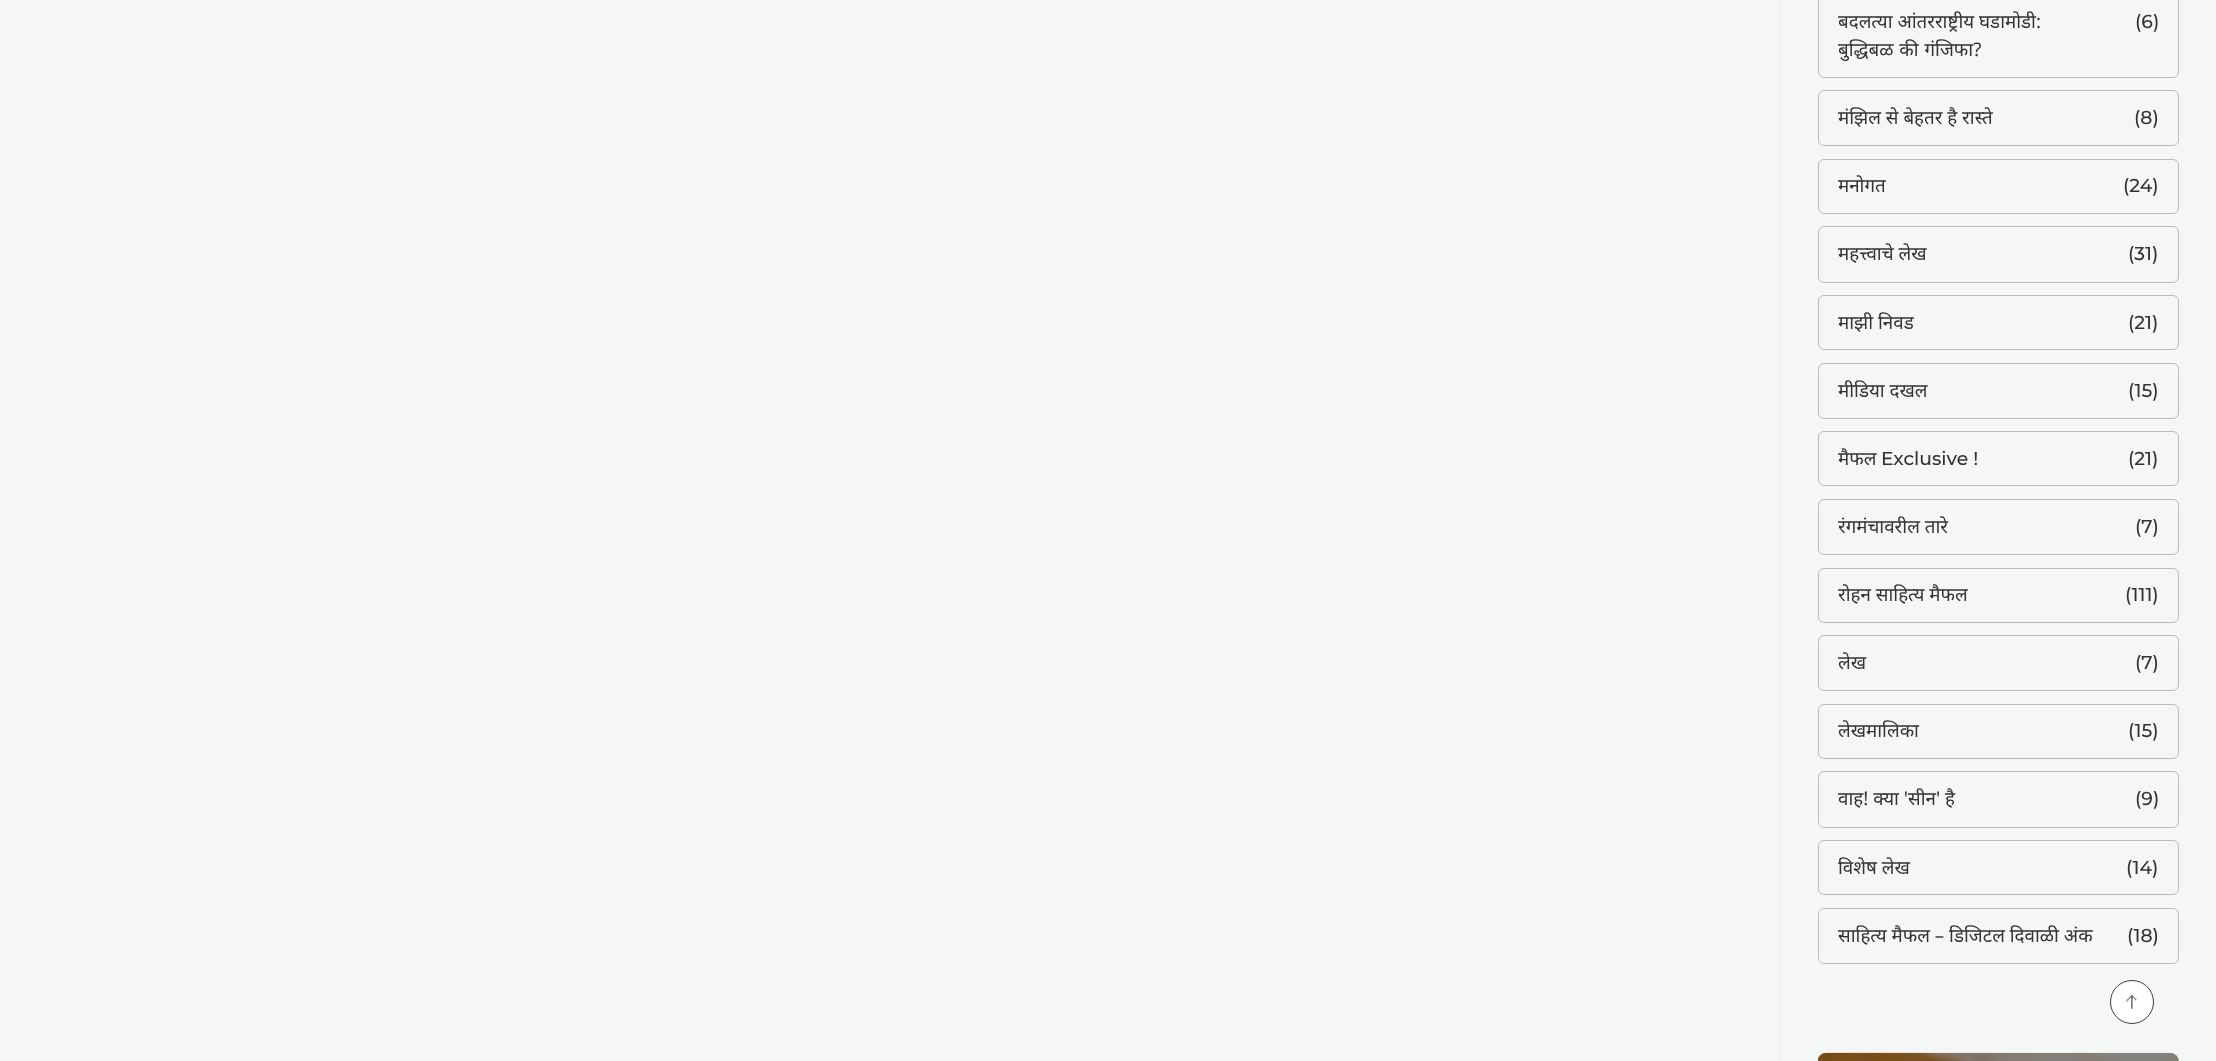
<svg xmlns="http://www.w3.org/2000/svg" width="2216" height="1061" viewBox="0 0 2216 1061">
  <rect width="100%" height="100%" fill="rgb(245,246,246)"/>
  <rect x="1779" y="0" width="1" height="1061" fill="rgb(234,234,234)"/>
  <rect x="1818.5" y="-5.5" width="360" height="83" rx="5.5" fill="none" stroke="rgb(187,187,187)"/>
  <g font-family="Noto Sans" font-size="18.75" fill="rgb(51,51,51)">
    <text>
      <tspan x="1838" y="28">बदलत्या आंतरराष्ट्रीय घडामोडी:</tspan>
      <tspan x="1838" y="56" word-spacing="1">बुद्धिबळ की गंजिफा?</tspan>
    </text>
  </g>
  <text x="2135" y="28" font-family="Montserrat" font-size="18.75" font-weight="500" fill="rgb(51,51,51)">(6)</text>
  <rect x="1818.5" y="90.5" width="360" height="55" rx="5.5" fill="none" stroke="rgb(187,187,187)"/>
  <text x="1838" y="124" font-family="Noto Sans" font-size="18.75" fill="rgb(51,51,51)">मंझिल से बेहतर है रास्ते</text>
  <text x="2134" y="124" font-family="Montserrat" font-size="18.75" font-weight="500" fill="rgb(51,51,51)">(8)</text>
  <rect x="1818.5" y="159.5" width="360" height="54" rx="5.5" fill="none" stroke="rgb(187,187,187)"/>
  <text x="1838" y="192" font-family="Noto Sans" font-size="18.75" fill="rgb(51,51,51)">मनोगत</text>
  <text x="2123" y="192" font-family="Montserrat" font-size="18.75" font-weight="500" fill="rgb(51,51,51)">(24)</text>
  <rect x="1818.5" y="226.5" width="360" height="56" rx="5.5" fill="none" stroke="rgb(187,187,187)"/>
  <text x="1838" y="260" font-family="Noto Sans" font-size="18.75" fill="rgb(51,51,51)">महत्त्वाचे लेख</text>
  <text x="2128" y="260" font-family="Montserrat" font-size="18.75" font-weight="500" fill="rgb(51,51,51)">(31)</text>
  <rect x="1818.5" y="295.5" width="360" height="54" rx="5.5" fill="none" stroke="rgb(187,187,187)"/>
  <text x="1838" y="329" font-family="Noto Sans" font-size="18.75" fill="rgb(51,51,51)">माझी निवड</text>
  <text x="2128" y="329" font-family="Montserrat" font-size="18.75" font-weight="500" fill="rgb(51,51,51)">(21)</text>
  <rect x="1818.5" y="363.5" width="360" height="55" rx="5.5" fill="none" stroke="rgb(187,187,187)"/>
  <text x="1838" y="397" font-family="Noto Sans" font-size="18.75" fill="rgb(51,51,51)">मीडिया दखल</text>
  <text x="2128" y="397" font-family="Montserrat" font-size="18.75" font-weight="500" fill="rgb(51,51,51)">(15)</text>
  <rect x="1818.5" y="431.5" width="360" height="54" rx="5.5" fill="none" stroke="rgb(187,187,187)"/>
  <text x="1838" y="465" font-family="Noto Sans" font-size="18.75" fill="rgb(51,51,51)">मैफल</text>
  <g font-family="Montserrat" font-size="18.75" font-weight="500" fill="rgb(51,51,51)">
    <text x="1881" y="465">Exclusive !</text>
    <text x="2128" y="465">(21)</text>
  </g>
  <rect x="1818.5" y="499.5" width="360" height="55" rx="5.5" fill="none" stroke="rgb(187,187,187)"/>
  <text x="1838" y="533" font-family="Noto Sans" font-size="18.75" fill="rgb(51,51,51)">रंगमंचावरील तारे</text>
  <text x="2135" y="533" font-family="Montserrat" font-size="18.75" font-weight="500" fill="rgb(51,51,51)">(7)</text>
  <rect x="1818.5" y="568.5" width="360" height="54" rx="5.5" fill="none" stroke="rgb(187,187,187)"/>
  <text x="1838" y="601" font-family="Noto Sans" font-size="18.75" fill="rgb(51,51,51)">रोहन साहित्य मैफल</text>
  <text x="2125" y="601" font-family="Montserrat" font-size="18.75" font-weight="500" fill="rgb(51,51,51)">(111)</text>
  <rect x="1818.5" y="635.5" width="360" height="55" rx="5.5" fill="none" stroke="rgb(187,187,187)"/>
  <text x="1838" y="669" font-family="Noto Sans" font-size="18.75" fill="rgb(51,51,51)">लेख</text>
  <text x="2135" y="669" font-family="Montserrat" font-size="18.75" font-weight="500" fill="rgb(51,51,51)">(7)</text>
  <rect x="1818.5" y="704.5" width="360" height="54" rx="5.5" fill="none" stroke="rgb(187,187,187)"/>
  <text x="1838" y="737" font-family="Noto Sans" font-size="18.75" fill="rgb(51,51,51)">लेखमालिका</text>
  <text x="2128" y="737" font-family="Montserrat" font-size="18.75" font-weight="500" fill="rgb(51,51,51)">(15)</text>
  <rect x="1818.5" y="771.5" width="360" height="56" rx="5.5" fill="none" stroke="rgb(187,187,187)"/>
  <text x="1838" y="805" font-family="Noto Sans" font-size="18.75" fill="rgb(51,51,51)">वाह! क्या 'सीन' है</text>
  <text x="2135" y="805" font-family="Montserrat" font-size="18.75" font-weight="500" fill="rgb(51,51,51)">(9)</text>
  <rect x="1818.5" y="840.5" width="360" height="54" rx="5.5" fill="none" stroke="rgb(187,187,187)"/>
  <text x="1838" y="874" font-family="Noto Sans" font-size="18.75" fill="rgb(51,51,51)">विशेष लेख</text>
  <text x="2126" y="874" font-family="Montserrat" font-size="18.75" font-weight="500" fill="rgb(51,51,51)">(14)</text>
  <rect x="1818.5" y="908.5" width="360" height="55" rx="5.5" fill="none" stroke="rgb(187,187,187)"/>
  <text x="1838" y="942" font-family="Noto Sans" font-size="18.75" fill="rgb(51,51,51)">साहित्य मैफल – डिजिटल दिवाळी अंक</text>
  <text x="2127" y="942" font-family="Montserrat" font-size="18.75" font-weight="500" fill="rgb(51,51,51)">(18)</text>
  <image x="1817" y="1052" width="362" height="9" href="pic1.png"/>
  <rect x="1818" y="1053" width="361" height="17" rx="9" fill="rgba(0,0,0,0.3)"/>
  <circle cx="2132" cy="1002" r="21.5" fill="rgb(255,255,255)" stroke="rgb(61,61,61)"/>
  <image x="2126" y="994" width="11" height="15" href="pic2.png"/>
</svg>
